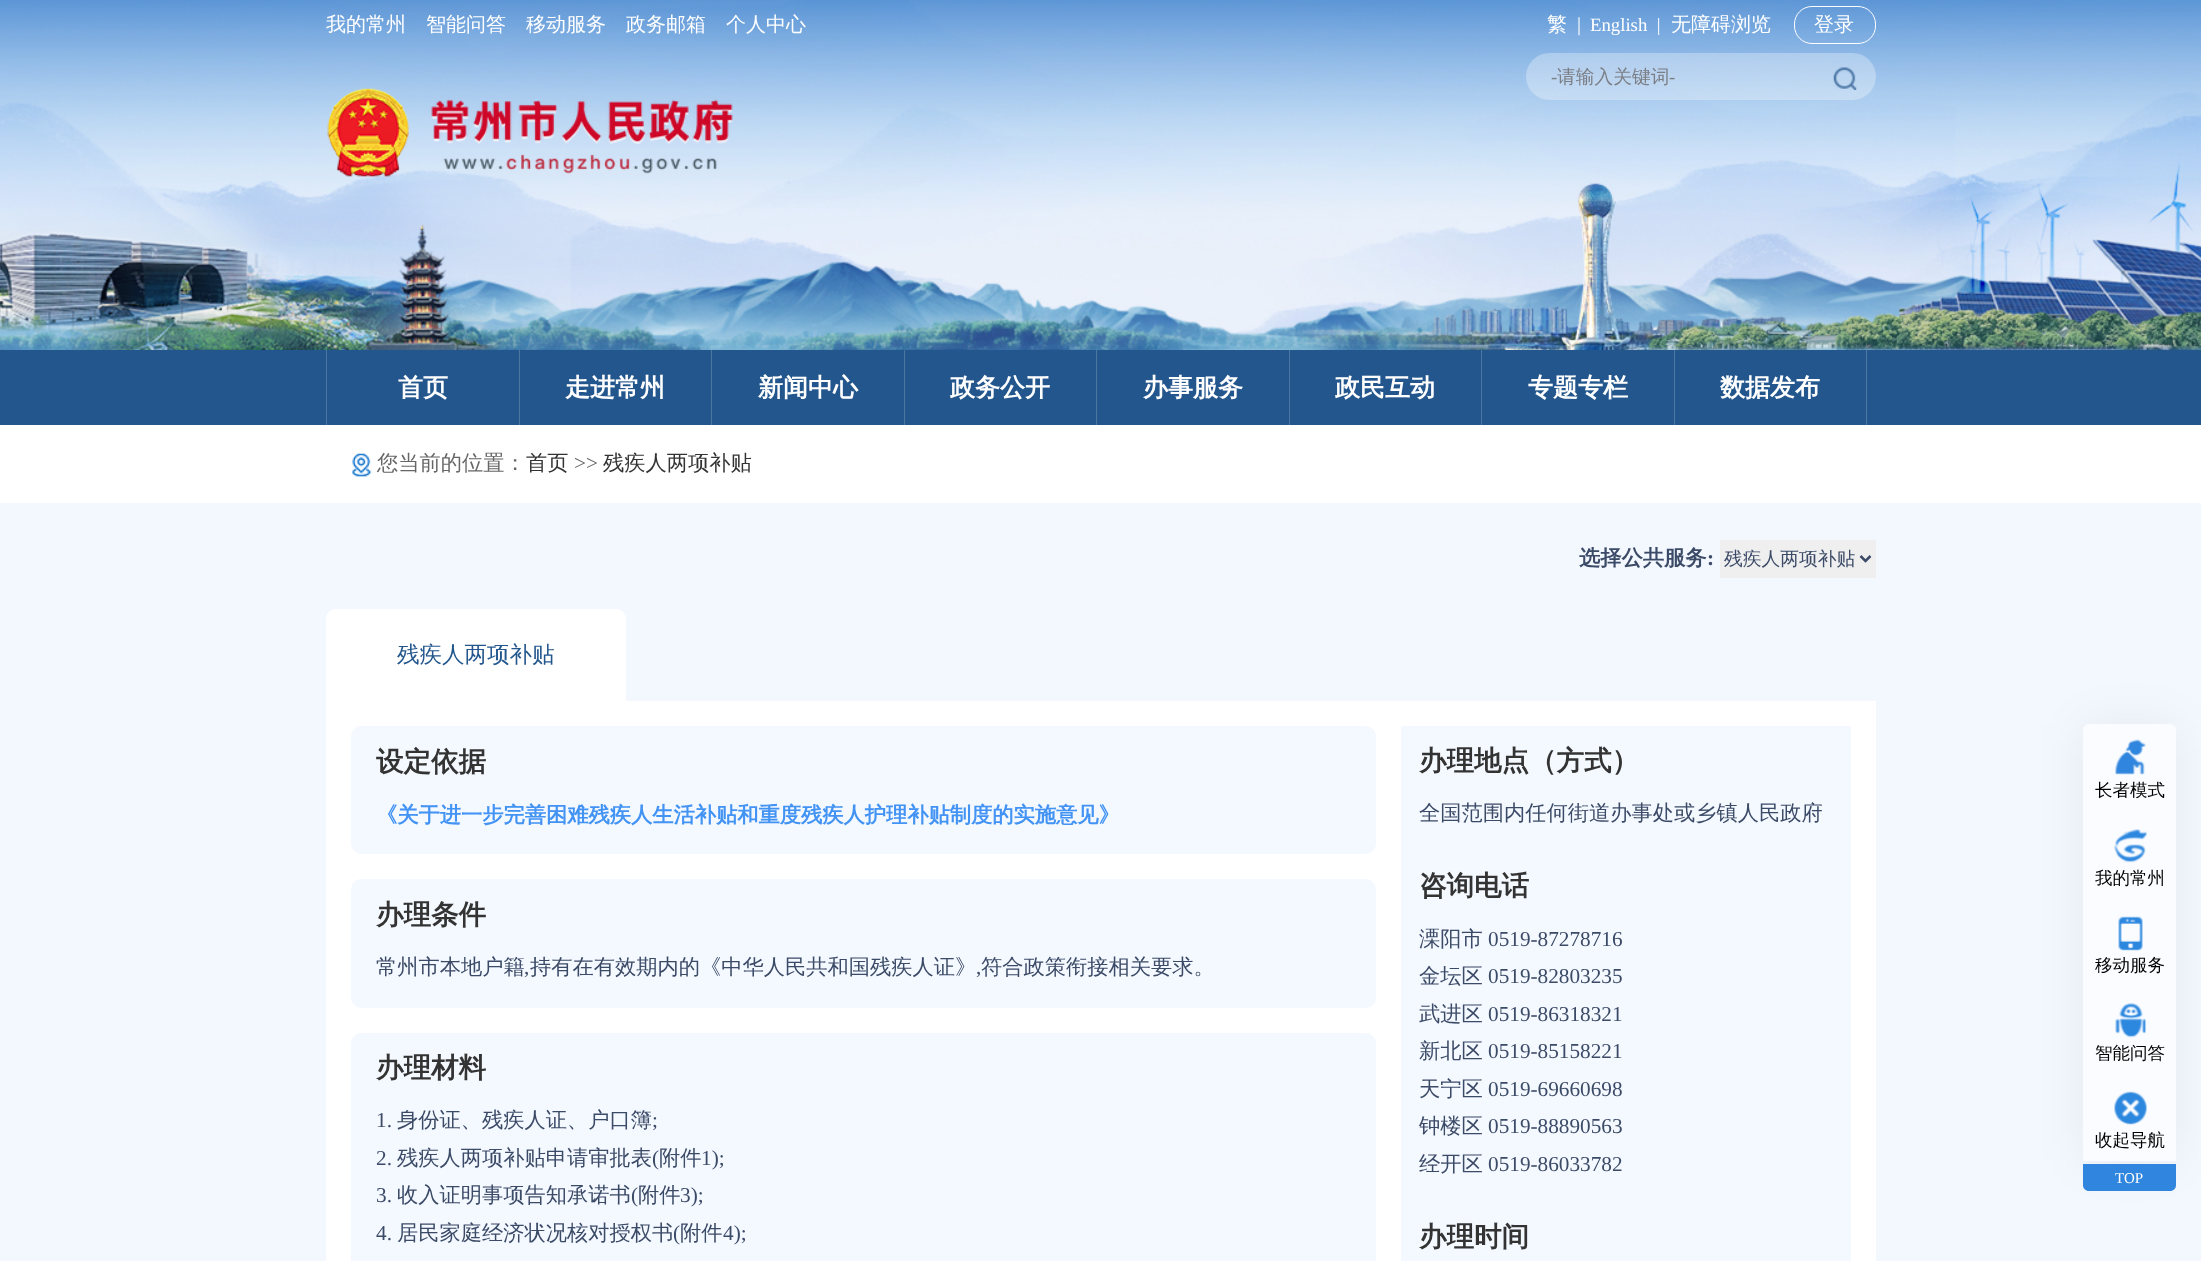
<svg xmlns="http://www.w3.org/2000/svg" width="2201" height="1261" viewBox="0 0 2201 1261">
  <rect width="100%" height="100%" fill="rgb(255,255,255)"/>
  <image x="0" y="0" width="2201" height="350" href="pic1.png"/>
  <g font-family="WenQuanYi Zen Hei" font-size="20" font-weight="500" fill="rgb(255,255,255)">
    <text x="326" y="31">我的常州</text>
    <text x="426" y="31">智能问答</text>
    <text x="526" y="31">移动服务</text>
    <text x="626" y="31">政务邮箱</text>
    <text x="726" y="31">个人中心</text>
    <text x="1547" y="31">繁</text>
  </g>
  <text x="1577" y="31" font-family="Liberation Serif" font-size="20" fill="rgb(255,255,255)">|</text>
  <text x="1590" y="31" font-family="Liberation Serif" font-size="18.75" fill="rgb(255,255,255)" xml:space="preserve">English  |</text>
  <text x="1671" y="31" font-family="WenQuanYi Zen Hei" font-size="20" font-weight="500" fill="rgb(255,255,255)">无障碍浏览</text>
  <rect x="1794.5" y="6.5" width="81" height="37" rx="17.5" fill="none" stroke="rgb(255,255,255)"/>
  <text x="1814" y="31" font-family="WenQuanYi Zen Hei" font-size="20" font-weight="500" fill="rgb(255,255,255)">登录</text>
  <rect x="1526" y="53" width="350" height="47" rx="23.5" fill="rgba(255,255,255,0.3)"/>
  <text x="1551" y="83" font-family="Liberation Serif" font-size="18.75" fill="rgb(123,126,133)">-</text>
  <text x="1557" y="83" font-family="WenQuanYi Zen Hei" font-size="18.75" font-weight="500" fill="rgb(123,126,133)">请输入关键词</text>
  <text x="1669" y="83" font-family="Liberation Serif" font-size="18.75" fill="rgb(123,126,133)">-</text>
  <image x="1833" y="67" width="24" height="23" href="pic2.png"/>
  <image x="327" y="88" width="406" height="89" href="pic3.png"/>
  <rect x="0" y="350" width="2201" height="75" fill="rgb(34,86,141)"/>
  <rect x="326" y="350" width="1" height="75" fill="rgb(78,120,164)"/>
  <text x="398" y="396" font-family="WenQuanYi Zen Hei" font-size="25" font-weight="bold" fill="rgb(255,255,255)">首页</text>
  <rect x="519" y="350" width="1" height="75" fill="rgb(78,120,164)"/>
  <text x="565" y="396" font-family="WenQuanYi Zen Hei" font-size="25" font-weight="bold" fill="rgb(255,255,255)">走进常州</text>
  <rect x="711" y="350" width="1" height="75" fill="rgb(78,120,164)"/>
  <text x="758" y="396" font-family="WenQuanYi Zen Hei" font-size="25" font-weight="bold" fill="rgb(255,255,255)">新闻中心</text>
  <rect x="904" y="350" width="1" height="75" fill="rgb(78,120,164)"/>
  <text x="950" y="396" font-family="WenQuanYi Zen Hei" font-size="25" font-weight="bold" fill="rgb(255,255,255)">政务公开</text>
  <rect x="1096" y="350" width="1" height="75" fill="rgb(78,120,164)"/>
  <text x="1143" y="396" font-family="WenQuanYi Zen Hei" font-size="25" font-weight="bold" fill="rgb(255,255,255)">办事服务</text>
  <rect x="1289" y="350" width="1" height="75" fill="rgb(78,120,164)"/>
  <text x="1335" y="396" font-family="WenQuanYi Zen Hei" font-size="25" font-weight="bold" fill="rgb(255,255,255)">政民互动</text>
  <rect x="1481" y="350" width="1" height="75" fill="rgb(78,120,164)"/>
  <text x="1528" y="396" font-family="WenQuanYi Zen Hei" font-size="25" font-weight="bold" fill="rgb(255,255,255)">专题专栏</text>
  <rect x="1866" y="350" width="1" height="75" fill="rgb(78,120,164)"/>
  <rect x="1674" y="350" width="1" height="75" fill="rgb(78,120,164)"/>
  <text x="1720" y="396" font-family="WenQuanYi Zen Hei" font-size="25" font-weight="bold" fill="rgb(255,255,255)">数据发布</text>
  <image x="352" y="453" width="20" height="24" href="pic4.png"/>
  <text x="377" y="470" font-family="WenQuanYi Zen Hei" font-size="21.25" font-weight="500" fill="rgb(102,102,102)">您当前的位置：</text>
  <text x="526" y="470" font-family="WenQuanYi Zen Hei" font-size="21.25" font-weight="500" fill="rgb(51,51,51)">首页</text>
  <text x="574" y="470" font-family="Liberation Serif" font-size="21.25" fill="rgb(102,102,102)">&gt;&gt;</text>
  <text x="603" y="470" font-family="WenQuanYi Zen Hei" font-size="21.25" font-weight="500" fill="rgb(51,51,51)">残疾人两项补贴</text>
  <rect x="0" y="503" width="2201" height="758" fill="rgb(243,248,255)"/>
  <text x="1579" y="565" font-family="WenQuanYi Zen Hei" font-size="21.25" font-weight="bold" fill="rgb(59,74,103)">选择公共服务</text>
  <text x="1707" y="565" font-family="Liberation Serif" font-size="21.25" font-weight="bold" fill="rgb(59,74,103)">:</text>
  <rect x="1720" y="540" width="156" height="38" fill="rgb(239,239,239)"/>
  <path d="M1860.5 556L1865.5 561L1870.5 556" fill="none" stroke="rgb(59,74,103)" stroke-width="2.5"/>
  <text x="1724" y="565" font-family="WenQuanYi Zen Hei" font-size="18.75" font-weight="500" fill="rgb(59,74,103)">残疾人两项补贴</text>
  <path d="M336 609H616C621.5 609 626 613.5 626 619V701H326V619C326 613.5 330.5 609 336 609Z" fill="rgb(255,255,255)"/>
  <text x="397" y="662" font-family="WenQuanYi Zen Hei" font-size="22.5" font-weight="500" fill="rgb(34,86,141)">残疾人两项补贴</text>
  <rect x="326" y="701" width="1550" height="560" fill="rgb(255,255,255)"/>
  <rect x="351" y="726" width="1025" height="128" rx="10" fill="rgb(244,249,255)"/>
  <text x="376" y="771" font-family="WenQuanYi Zen Hei" font-size="27.5" font-weight="bold" fill="rgb(51,51,51)">设定依据</text>
  <text x="376" y="822" font-family="WenQuanYi Zen Hei" font-size="21.25" font-weight="bold" fill="rgb(66,147,244)">《关于进一步完善困难残疾人生活补贴和重度残疾人护理补贴制度的实施意见》</text>
  <rect x="351" y="879" width="1025" height="129" rx="10" fill="rgb(244,249,255)"/>
  <text x="376" y="924" font-family="WenQuanYi Zen Hei" font-size="27.5" font-weight="bold" fill="rgb(51,51,51)">办理条件</text>
  <text x="376" y="974" font-family="WenQuanYi Zen Hei" font-size="21.25" font-weight="500" fill="rgb(59,74,103)">常州市本地户籍</text>
  <text x="524" y="974" font-family="Liberation Serif" font-size="21.25" fill="rgb(59,74,103)">,</text>
  <text x="530" y="974" font-family="WenQuanYi Zen Hei" font-size="21.25" font-weight="500" fill="rgb(59,74,103)">持有在有效期内的《中华人民共和国残疾人证》</text>
  <text x="976" y="974" font-family="Liberation Serif" font-size="21.25" fill="rgb(59,74,103)">,</text>
  <text x="981" y="974" font-family="WenQuanYi Zen Hei" font-size="21.25" font-weight="500" fill="rgb(59,74,103)">符合政策衔接相关要求。</text>
  <rect x="351" y="1033" width="1025" height="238" rx="10" fill="rgb(244,249,255)"/>
  <text x="376" y="1077" font-family="WenQuanYi Zen Hei" font-size="27.5" font-weight="bold" fill="rgb(51,51,51)">办理材料</text>
  <text x="376" y="1127" font-family="Liberation Serif" font-size="21.25" fill="rgb(59,74,103)">1.</text>
  <text x="397" y="1127" font-family="WenQuanYi Zen Hei" font-size="21.25" font-weight="500" fill="rgb(59,74,103)">身份证、残疾人证、户口簿</text>
  <g font-family="Liberation Serif" font-size="21.25" fill="rgb(59,74,103)">
    <text x="652" y="1127">;</text>
    <text x="376" y="1165">2.</text>
  </g>
  <text x="397" y="1165" font-family="WenQuanYi Zen Hei" font-size="21.25" font-weight="500" fill="rgb(59,74,103)">残疾人两项补贴申请审批表</text>
  <text x="652" y="1165" font-family="Liberation Serif" font-size="21.25" fill="rgb(59,74,103)">(</text>
  <text x="659" y="1165" font-family="WenQuanYi Zen Hei" font-size="21.25" font-weight="500" fill="rgb(59,74,103)">附件</text>
  <g font-family="Liberation Serif" font-size="21.25" fill="rgb(59,74,103)">
    <text x="701" y="1165">1);</text>
    <text x="376" y="1202">3.</text>
  </g>
  <text x="397" y="1202" font-family="WenQuanYi Zen Hei" font-size="21.25" font-weight="500" fill="rgb(59,74,103)">收入证明事项告知承诺书</text>
  <text x="631" y="1202" font-family="Liberation Serif" font-size="21.25" fill="rgb(59,74,103)">(</text>
  <text x="638" y="1202" font-family="WenQuanYi Zen Hei" font-size="21.25" font-weight="500" fill="rgb(59,74,103)">附件</text>
  <g font-family="Liberation Serif" font-size="21.25" fill="rgb(59,74,103)">
    <text x="680" y="1202">3);</text>
    <text x="376" y="1240">4.</text>
  </g>
  <text x="397" y="1240" font-family="WenQuanYi Zen Hei" font-size="21.25" font-weight="500" fill="rgb(59,74,103)">居民家庭经济状况核对授权书</text>
  <text x="673" y="1240" font-family="Liberation Serif" font-size="21.25" fill="rgb(59,74,103)">(</text>
  <text x="680" y="1240" font-family="WenQuanYi Zen Hei" font-size="21.25" font-weight="500" fill="rgb(59,74,103)">附件</text>
  <text x="723" y="1240" font-family="Liberation Serif" font-size="21.25" fill="rgb(59,74,103)">4);</text>
  <rect x="1401" y="726" width="450" height="535" fill="rgb(244,249,255)"/>
  <text x="1419" y="770" font-family="WenQuanYi Zen Hei" font-size="27.5" font-weight="bold" fill="rgb(51,51,51)">办理地点（方式）</text>
  <text x="1419" y="820" font-family="WenQuanYi Zen Hei" font-size="21.25" font-weight="500" fill="rgb(59,74,103)">全国范围内任何街道办事处或乡镇人民政府</text>
  <text x="1419" y="895" font-family="WenQuanYi Zen Hei" font-size="27.5" font-weight="bold" fill="rgb(51,51,51)">咨询电话</text>
  <text x="1419" y="946" font-family="WenQuanYi Zen Hei" font-size="21.25" font-weight="500" fill="rgb(59,74,103)">溧阳市</text>
  <text x="1488" y="946" font-family="Liberation Serif" font-size="21.25" fill="rgb(59,74,103)">0519-87278716</text>
  <text x="1419" y="983" font-family="WenQuanYi Zen Hei" font-size="21.25" font-weight="500" fill="rgb(59,74,103)">金坛区</text>
  <text x="1488" y="983" font-family="Liberation Serif" font-size="21.25" fill="rgb(59,74,103)">0519-82803235</text>
  <text x="1419" y="1021" font-family="WenQuanYi Zen Hei" font-size="21.25" font-weight="500" fill="rgb(59,74,103)">武进区</text>
  <text x="1488" y="1021" font-family="Liberation Serif" font-size="21.25" fill="rgb(59,74,103)">0519-86318321</text>
  <text x="1419" y="1058" font-family="WenQuanYi Zen Hei" font-size="21.25" font-weight="500" fill="rgb(59,74,103)">新北区</text>
  <text x="1488" y="1058" font-family="Liberation Serif" font-size="21.25" fill="rgb(59,74,103)">0519-85158221</text>
  <text x="1419" y="1096" font-family="WenQuanYi Zen Hei" font-size="21.25" font-weight="500" fill="rgb(59,74,103)">天宁区</text>
  <text x="1488" y="1096" font-family="Liberation Serif" font-size="21.25" fill="rgb(59,74,103)">0519-69660698</text>
  <text x="1419" y="1133" font-family="WenQuanYi Zen Hei" font-size="21.25" font-weight="500" fill="rgb(59,74,103)">钟楼区</text>
  <text x="1488" y="1133" font-family="Liberation Serif" font-size="21.25" fill="rgb(59,74,103)">0519-88890563</text>
  <text x="1419" y="1171" font-family="WenQuanYi Zen Hei" font-size="21.25" font-weight="500" fill="rgb(59,74,103)">经开区</text>
  <text x="1488" y="1171" font-family="Liberation Serif" font-size="21.25" fill="rgb(59,74,103)">0519-86033782</text>
  <text x="1419" y="1246" font-family="WenQuanYi Zen Hei" font-size="27.5" font-weight="bold" fill="rgb(51,51,51)">办理时间</text>
  <rect x="2083" y="724" width="93" height="437" rx="6" fill="rgba(0,0,0,0.06)" filter="blur(24px)"/>
  <path d="M2089 724H2170C2173.5 724 2176 726.5 2176 730V1161H2083V730C2083 726.5 2085.5 724 2089 724Z" fill="rgb(250,252,255)"/>
  <image x="2115" y="739" width="31" height="36" href="pic5.png"/>
  <text x="2095" y="796" font-family="WenQuanYi Zen Hei" font-size="17.5" font-weight="500" fill="rgb(0,0,0)">长者模式</text>
  <image x="2114" y="829" width="33" height="34" href="pic6.png"/>
  <text x="2095" y="884" font-family="WenQuanYi Zen Hei" font-size="17.5" font-weight="500" fill="rgb(0,0,0)">我的常州</text>
  <image x="2118" y="916" width="25" height="35" href="pic7.png"/>
  <text x="2095" y="971" font-family="WenQuanYi Zen Hei" font-size="17.5" font-weight="500" fill="rgb(0,0,0)">移动服务</text>
  <image x="2115" y="1003" width="31" height="35" href="pic8.png"/>
  <text x="2095" y="1059" font-family="WenQuanYi Zen Hei" font-size="17.5" font-weight="500" fill="rgb(0,0,0)">智能问答</text>
  <image x="2114" y="1091" width="33" height="34" href="pic9.png"/>
  <text x="2095" y="1146" font-family="WenQuanYi Zen Hei" font-size="17.5" font-weight="500" fill="rgb(0,0,0)">收起导航</text>
  <path d="M2083 1164H2176V1185C2176 1188.5 2173.5 1191 2170 1191H2089C2085.5 1191 2083 1188.5 2083 1185Z" fill="rgb(48,134,222)"/>
  <text x="2115" y="1183" font-family="Liberation Serif" font-size="15" fill="rgb(255,255,255)">TOP</text>
</svg>
